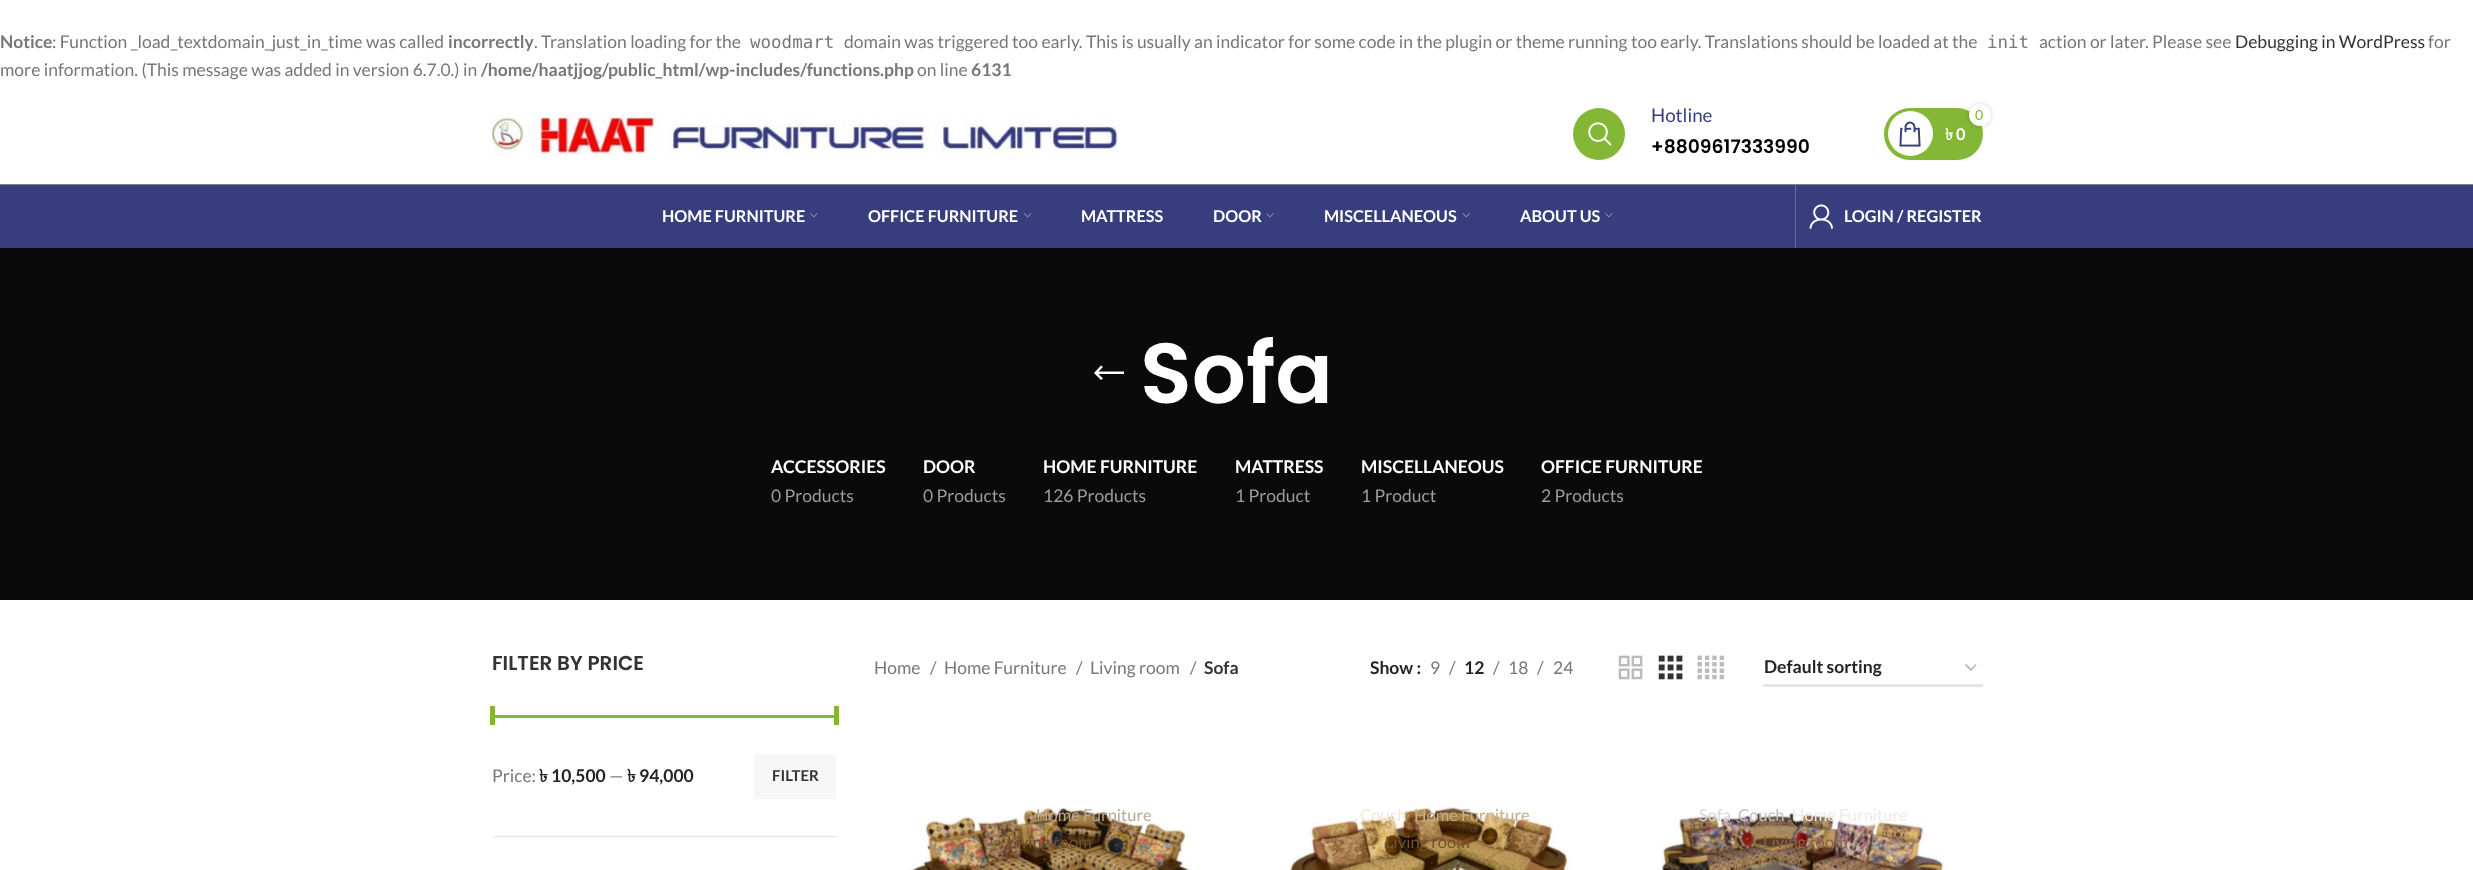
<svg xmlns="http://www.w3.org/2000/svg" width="2473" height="870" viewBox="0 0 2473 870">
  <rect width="100%" height="100%" fill="rgb(255,255,255)"/>
  <text x="0" y="48" font-family="Lato" font-size="17.5" font-weight="bold" fill="rgb(119,119,119)">Notice</text>
  <text x="52" y="48" font-family="Lato" font-size="17.5" fill="rgb(119,119,119)">: Function _load_textdomain_just_in_time was called</text>
  <text x="448" y="48" font-family="Lato" font-size="17.5" font-weight="bold" fill="rgb(119,119,119)">incorrectly</text>
  <text x="534" y="48" font-family="Lato" font-size="17.5" fill="rgb(119,119,119)">. Translation loading for the</text>
  <text x="750" y="48" font-family="DejaVu Sans Mono" font-size="17.5" fill="rgb(119,119,119)">woodmart</text>
  <text x="844" y="48" font-family="Lato" font-size="17.5" fill="rgb(119,119,119)">domain was triggered too early. This is usually an indicator for some code in the plugin or theme running too early. Translations should be loaded at the</text>
  <text x="1987" y="48" font-family="DejaVu Sans Mono" font-size="17.5" fill="rgb(119,119,119)">init</text>
  <text x="2039" y="48" font-family="Lato" font-size="17.5" fill="rgb(119,119,119)">action or later. Please see</text>
  <text x="2235" y="48" font-family="Lato" font-size="17.5" fill="rgb(51,51,51)">Debugging in WordPress</text>
  <g font-family="Lato" font-size="17.5" fill="rgb(119,119,119)">
    <text x="2428" y="48">for</text>
    <text x="0" y="76">more information. (This message was added in version 6.7.0.) in</text>
  </g>
  <text x="481" y="76" font-family="Lato" font-size="17.5" font-weight="bold" fill="rgb(119,119,119)">/home/haatjjog/public_html/wp-includes/functions.php</text>
  <text x="917" y="76" font-family="Lato" font-size="17.5" fill="rgb(119,119,119)">on line</text>
  <text x="971" y="76" font-family="Lato" font-size="17.5" font-weight="bold" fill="rgb(119,119,119)">6131</text>
  <rect x="0" y="184" width="2473" height="1" fill="rgb(129,129,129)"/>
  <image x="492" y="112" width="626" height="44" href="pic1.png"/>
  <circle cx="1599" cy="134" r="26" fill="rgb(131,183,53)"/>
  <image x="1588" y="122" width="24" height="24" href="pic2.png"/>
  <text x="1651" y="122" font-family="Lato" font-size="18.75" fill="rgb(56,61,125)">Hotline</text>
  <text x="1651" y="153" font-family="Poppins" font-size="18.75" font-weight="600" fill="rgb(0,0,0)">+8809617333990</text>
  <rect x="1884" y="108" width="99" height="52" rx="26" fill="rgb(131,183,53)"/>
  <circle cx="1910.5" cy="133.5" r="22.5" fill="rgb(255,255,255)"/>
  <rect x="1969" y="104" width="22" height="22" rx="11" fill="rgba(0,0,0,0.17)" filter="blur(2.5px)"/>
  <circle cx="1980" cy="115" r="11" fill="rgb(255,255,255)"/>
  <text x="1975" y="120" font-family="Lato" font-size="14" fill="rgb(131,183,53)">0</text>
  <image x="1899" y="121" width="22" height="26" href="pic3.png"/>
  <text x="1945" y="140" font-family="Lohit Bengali" font-size="16.25" font-weight="bold" fill="rgb(255,255,255)">৳</text>
  <text x="1956" y="140" font-family="Lato" font-size="16.25" font-weight="bold" fill="rgb(255,255,255)">0</text>
  <rect x="0" y="185" width="2473" height="63" fill="rgb(56,61,125)"/>
  <text x="662" y="222" font-family="Lato" font-size="16.25" font-weight="bold" fill="rgb(255,255,255)">HOME FURNITURE</text>
  <image x="810" y="213" width="8" height="5" href="pic4.png"/>
  <text x="868" y="222" font-family="Lato" font-size="16.25" font-weight="bold" fill="rgb(255,255,255)">OFFICE FURNITURE</text>
  <image x="1023" y="213" width="9" height="5" href="pic5.png"/>
  <g font-family="Lato" font-size="16.25" font-weight="bold" fill="rgb(255,255,255)">
    <text x="1081" y="222">MATTRESS</text>
    <text x="1213" y="222">DOOR</text>
  </g>
  <image x="1266" y="213" width="8" height="5" href="pic6.png"/>
  <text x="1324" y="222" font-family="Lato" font-size="16.25" font-weight="bold" fill="rgb(255,255,255)">MISCELLANEOUS</text>
  <image x="1462" y="213" width="8" height="5" href="pic7.png"/>
  <text x="1520" y="222" font-family="Lato" font-size="16.25" font-weight="bold" fill="rgb(255,255,255)">ABOUT US</text>
  <image x="1605" y="213" width="8" height="5" href="pic4.png"/>
  <rect x="1795" y="185" width="1" height="63" fill="rgb(106,110,158)"/>
  <image x="1809" y="204" width="24" height="25" href="pic8.png"/>
  <text x="1844" y="222" font-family="Lato" font-size="16.25" font-weight="bold" fill="rgb(255,255,255)">LOGIN / REGISTER</text>
  <rect x="0" y="248" width="2473" height="352" fill="rgb(10,10,10)"/>
  <path d="M1103 378.5L1098.5 374H1124V371.5H1098.5L1103 367L1101 365.5L1094 373L1101 380Z" fill="rgb(255,255,255)"/>
  <text x="1140" y="403" font-family="Poppins" font-size="85" font-weight="600" fill="rgb(255,255,255)">Sofa</text>
  <text x="771" y="473" font-family="Lato" font-size="17.5" font-weight="bold" fill="rgb(255,255,255)">ACCESSORIES</text>
  <text x="771" y="502" font-family="Lato" font-size="17.5" fill="rgb(157,157,157)">0 Products</text>
  <text x="923" y="473" font-family="Lato" font-size="17.5" font-weight="bold" fill="rgb(255,255,255)">DOOR</text>
  <text x="923" y="502" font-family="Lato" font-size="17.5" fill="rgb(157,157,157)">0 Products</text>
  <text x="1043" y="473" font-family="Lato" font-size="17.5" font-weight="bold" fill="rgb(255,255,255)">HOME FURNITURE</text>
  <text x="1043" y="502" font-family="Lato" font-size="17.5" fill="rgb(157,157,157)">126 Products</text>
  <text x="1235" y="473" font-family="Lato" font-size="17.5" font-weight="bold" fill="rgb(255,255,255)">MATTRESS</text>
  <text x="1235" y="502" font-family="Lato" font-size="17.5" fill="rgb(157,157,157)">1 Product</text>
  <text x="1361" y="473" font-family="Lato" font-size="17.5" font-weight="bold" fill="rgb(255,255,255)">MISCELLANEOUS</text>
  <text x="1361" y="502" font-family="Lato" font-size="17.5" fill="rgb(157,157,157)">1 Product</text>
  <text x="1541" y="473" font-family="Lato" font-size="17.5" font-weight="bold" fill="rgb(255,255,255)">OFFICE FURNITURE</text>
  <text x="1541" y="502" font-family="Lato" font-size="17.5" fill="rgb(157,157,157)">2 Products</text>
  <rect x="493" y="836" width="343" height="1" fill="rgb(228,228,228)"/>
  <text x="492" y="670" font-family="Poppins" font-size="20" font-weight="600" fill="rgb(51,51,51)">FILTER BY PRICE</text>
  <rect x="493" y="715" width="343" height="3" fill="rgb(131,183,53)"/>
  <rect x="490" y="706" width="5" height="19" fill="rgb(131,183,53)"/>
  <rect x="834" y="706" width="5" height="19" fill="rgb(131,183,53)"/>
  <text x="492" y="782" font-family="Lato" font-size="17.5" fill="rgb(119,119,119)">Price:</text>
  <text x="539" y="782" font-family="Lohit Bengali" font-size="17.5" font-weight="bold" fill="rgb(36,36,36)">৳</text>
  <text x="551" y="782" font-family="Lato" font-size="17.5" font-weight="bold" fill="rgb(36,36,36)">10,500</text>
  <text x="609" y="782" font-family="Lato" font-size="17.5" fill="rgb(119,119,119)">—</text>
  <text x="627" y="782" font-family="Lohit Bengali" font-size="17.5" font-weight="bold" fill="rgb(36,36,36)">৳</text>
  <text x="639" y="782" font-family="Lato" font-size="17.5" font-weight="bold" fill="rgb(36,36,36)">94,000</text>
  <rect x="754" y="754" width="82" height="45" fill="rgb(247,247,247)"/>
  <text x="772" y="781" font-family="Lato" font-size="15" font-weight="bold" fill="rgb(51,51,51)">FILTER</text>
  <g font-family="Lato" font-size="17.5" fill="rgb(119,119,119)">
    <text x="874" y="674">Home</text>
    <text x="930" y="674">/</text>
    <text x="944" y="674">Home Furniture</text>
    <text x="1076" y="674">/</text>
    <text x="1090" y="674">Living room</text>
    <text x="1190" y="674">/</text>
  </g>
  <text x="1204" y="674" font-family="Lato" font-size="17.5" font-weight="bold" fill="rgb(51,51,51)">Sofa</text>
  <text x="1370" y="674" font-family="Lato" font-size="17.5" font-weight="bold" fill="rgb(36,36,36)">Show :</text>
  <g font-family="Lato" font-size="17.5" fill="rgb(119,119,119)">
    <text x="1430" y="674">9</text>
    <text x="1449" y="674">/</text>
  </g>
  <text x="1464" y="674" font-family="Lato" font-size="17.5" font-weight="bold" fill="rgb(36,36,36)">12</text>
  <g font-family="Lato" font-size="17.5" fill="rgb(119,119,119)">
    <text x="1493" y="674">/</text>
    <text x="1508" y="674">18</text>
    <text x="1537" y="674">/</text>
    <text x="1553" y="674">24</text>
  </g>
  <image x="1618" y="655" width="25" height="25" href="pic9.png"/>
  <image x="1658" y="655" width="25" height="25" href="pic10.png"/>
  <image x="1697" y="655" width="28" height="25" href="pic11.png"/>
  <path d="M1965.5 664.5L1971 670L1976 664.5" fill="none" stroke="rgb(187,187,187)" stroke-width="1.8"/>
  <rect x="1763" y="684" width="220" height="3" fill="rgb(230,230,230)"/>
  <text x="1764" y="673" font-family="Lato" font-size="17.5" font-weight="bold" fill="rgb(36,36,36)">Default sorting</text>
  <image x="907" y="807" width="286" height="63" href="pic12.png"/>
  <text x="1036" y="821" font-family="Lato" font-size="16.5" fill="rgb(182,169,150)">Home Furniture</text>
  <text x="1007" y="848" font-family="Lato" font-size="16.5" fill="rgb(108,78,45)">Living room</text>
  <image x="1288" y="803" width="285" height="67" href="pic13.png"/>
  <text x="1354" y="821" font-family="Lato" font-size="16.5" fill="rgb(233,224,213)">,</text>
  <text x="1360" y="821" font-family="Lato" font-size="16.5" fill="rgb(241,233,219)">Couch</text>
  <text x="1414" y="821" font-family="Lato" font-size="16.5" fill="rgb(195,174,139)">Home Furniture</text>
  <text x="1385" y="848" font-family="Lato" font-size="16.5" fill="rgb(116,84,41)">Living room</text>
  <image x="1661" y="810" width="283" height="60" href="pic14.png"/>
  <text x="1699" y="821" font-family="Lato" font-size="16.5" fill="rgb(220,213,208)">Sofa</text>
  <text x="1731" y="821" font-family="Lato" font-size="16.5" fill="rgb(103,80,92)">,</text>
  <text x="1738" y="821" font-family="Lato" font-size="16.5" fill="rgb(198,191,187)">Couch</text>
  <text x="1785" y="821" font-family="Lato" font-size="16.5" fill="rgb(93,70,57)">,</text>
  <text x="1792" y="821" font-family="Lato" font-size="16.5" fill="rgb(238,234,231)">Home Furniture</text>
  <text x="1763" y="848" font-family="Lato" font-size="16.5" fill="rgb(138,99,72)">Living room</text>
</svg>
